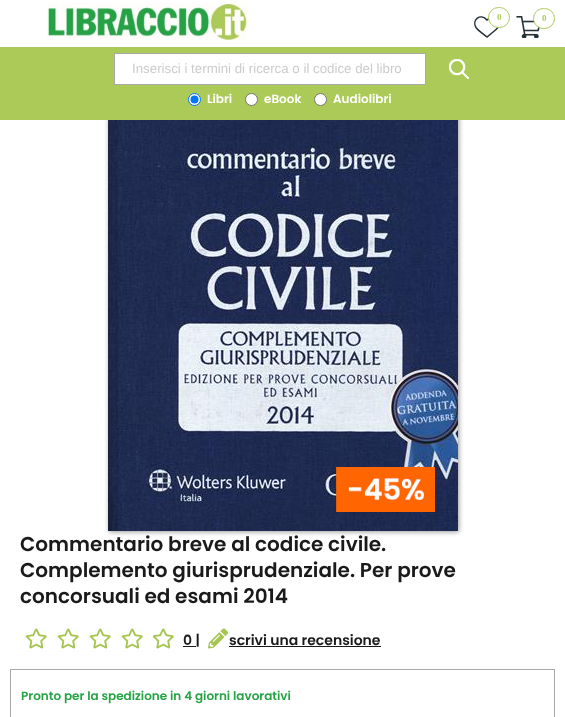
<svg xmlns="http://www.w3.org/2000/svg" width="565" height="717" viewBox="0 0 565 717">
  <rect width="100%" height="100%" fill="rgb(255,255,255)"/>
  <rect x="109" y="-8" width="350" height="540" fill="rgba(55,55,55,0.5)" filter="blur(2.5px)"/>
  <rect x="104" y="0" width="360" height="47" fill="rgb(255,255,255)"/>
  <image x="47" y="2" width="200" height="38" href="pic1.png"/>
  <path d="M487 37C484 34.5 478 30.5 476 27.5C471.5 20 480.5 12.5 487 20C494.5 11.5 504.5 22.5 495.5 30Z" fill="none" stroke="rgb(38,50,56)" stroke-width="1.5"/>
  <rect x="488.5" y="7.5" width="21" height="20" rx="10" fill="rgb(255,255,255)" stroke="rgb(172,202,88)"/>
  <text x="497" y="20" font-family="Liberation Serif" font-size="9" font-weight="bold" fill="rgb(172,202,88)">0</text>
  <image x="516" y="16" width="24" height="22" href="pic2.png"/>
  <rect x="533.5" y="8.5" width="21" height="20" rx="10" fill="rgb(255,255,255)" stroke="rgb(172,202,88)"/>
  <text x="542" y="21" font-family="Liberation Serif" font-size="9" font-weight="bold" fill="rgb(172,202,88)">0</text>
  <rect x="0" y="47" width="565" height="73" fill="rgb(172,202,88)"/>
  <rect x="114.5" y="53.5" width="311" height="31" fill="rgb(255,255,255)" stroke="rgb(169,169,169)"/>
  <text x="132" y="73" font-family="Liberation Sans" font-size="13.3" fill="rgb(204,204,204)">Inserisci i termini di ricerca o il codice del libro</text>
  <image x="449" y="59" width="20" height="20" href="pic3.png"/>
  <circle cx="194.5" cy="99.5" r="6" fill="rgb(255,255,255)" stroke="rgb(0,117,255)"/>
  <circle cx="194.5" cy="99.5" r="4" fill="rgb(0,117,255)"/>
  <text x="207" y="103" font-family="Poppins" font-size="12" font-weight="600" fill="rgb(255,255,255)">Libri</text>
  <circle cx="251.5" cy="99.5" r="6" fill="rgb(255,255,255)" stroke="rgb(118,118,118)"/>
  <text x="264" y="103" font-family="Poppins" font-size="12" font-weight="600" fill="rgb(255,255,255)">eBook</text>
  <circle cx="320.5" cy="99.5" r="6" fill="rgb(255,255,255)" stroke="rgb(118,118,118)"/>
  <text x="333" y="103" font-family="Poppins" font-size="12" font-weight="600" fill="rgb(255,255,255)">Audiolibri</text>
  <image x="108" y="120" width="350" height="411" href="pic4.png"/>
  <image x="336" y="467" width="99" height="45" href="pic5.png"/>
  <g font-family="Poppins" font-size="20" font-weight="600" fill="rgb(26,26,26)">
    <text>
      <tspan x="20" y="551">Commentario breve al codice civile.</tspan>
      <tspan x="20" y="577">Complemento giurisprudenziale. Per prove</tspan>
      <tspan x="20" y="603">concorsuali ed esami 2014</tspan>
    </text>
  </g>
  <image x="25" y="628" width="22" height="21" href="pic6.png"/>
  <image x="57" y="628" width="22" height="21" href="pic6.png"/>
  <image x="89" y="628" width="22" height="21" href="pic6.png"/>
  <image x="121" y="628" width="22" height="21" href="pic6.png"/>
  <image x="152" y="628" width="22" height="21" href="pic6.png"/>
  <rect x="183" y="646" width="13" height="1" fill="rgb(26,26,26)"/>
  <text x="183" y="645" font-family="Poppins" font-size="14" font-weight="600" fill="rgb(26,26,26)">0 |</text>
  <image x="208" y="628" width="20" height="21" href="pic7.png"/>
  <text x="229" y="645" font-family="Poppins" font-size="14" font-weight="600" fill="rgb(26,26,26)">scrivi una recensione</text>
  <rect x="229" y="646" width="152" height="1" fill="rgb(26,26,26)"/>
  <rect x="10.5" y="669.5" width="544" height="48" fill="none" stroke="rgb(169,169,169)"/>
  <text x="21" y="700" font-family="Poppins" font-size="12" font-weight="600" fill="rgb(37,163,69)">Pronto per la spedizione in 4 giorni lavorativi</text>
</svg>
